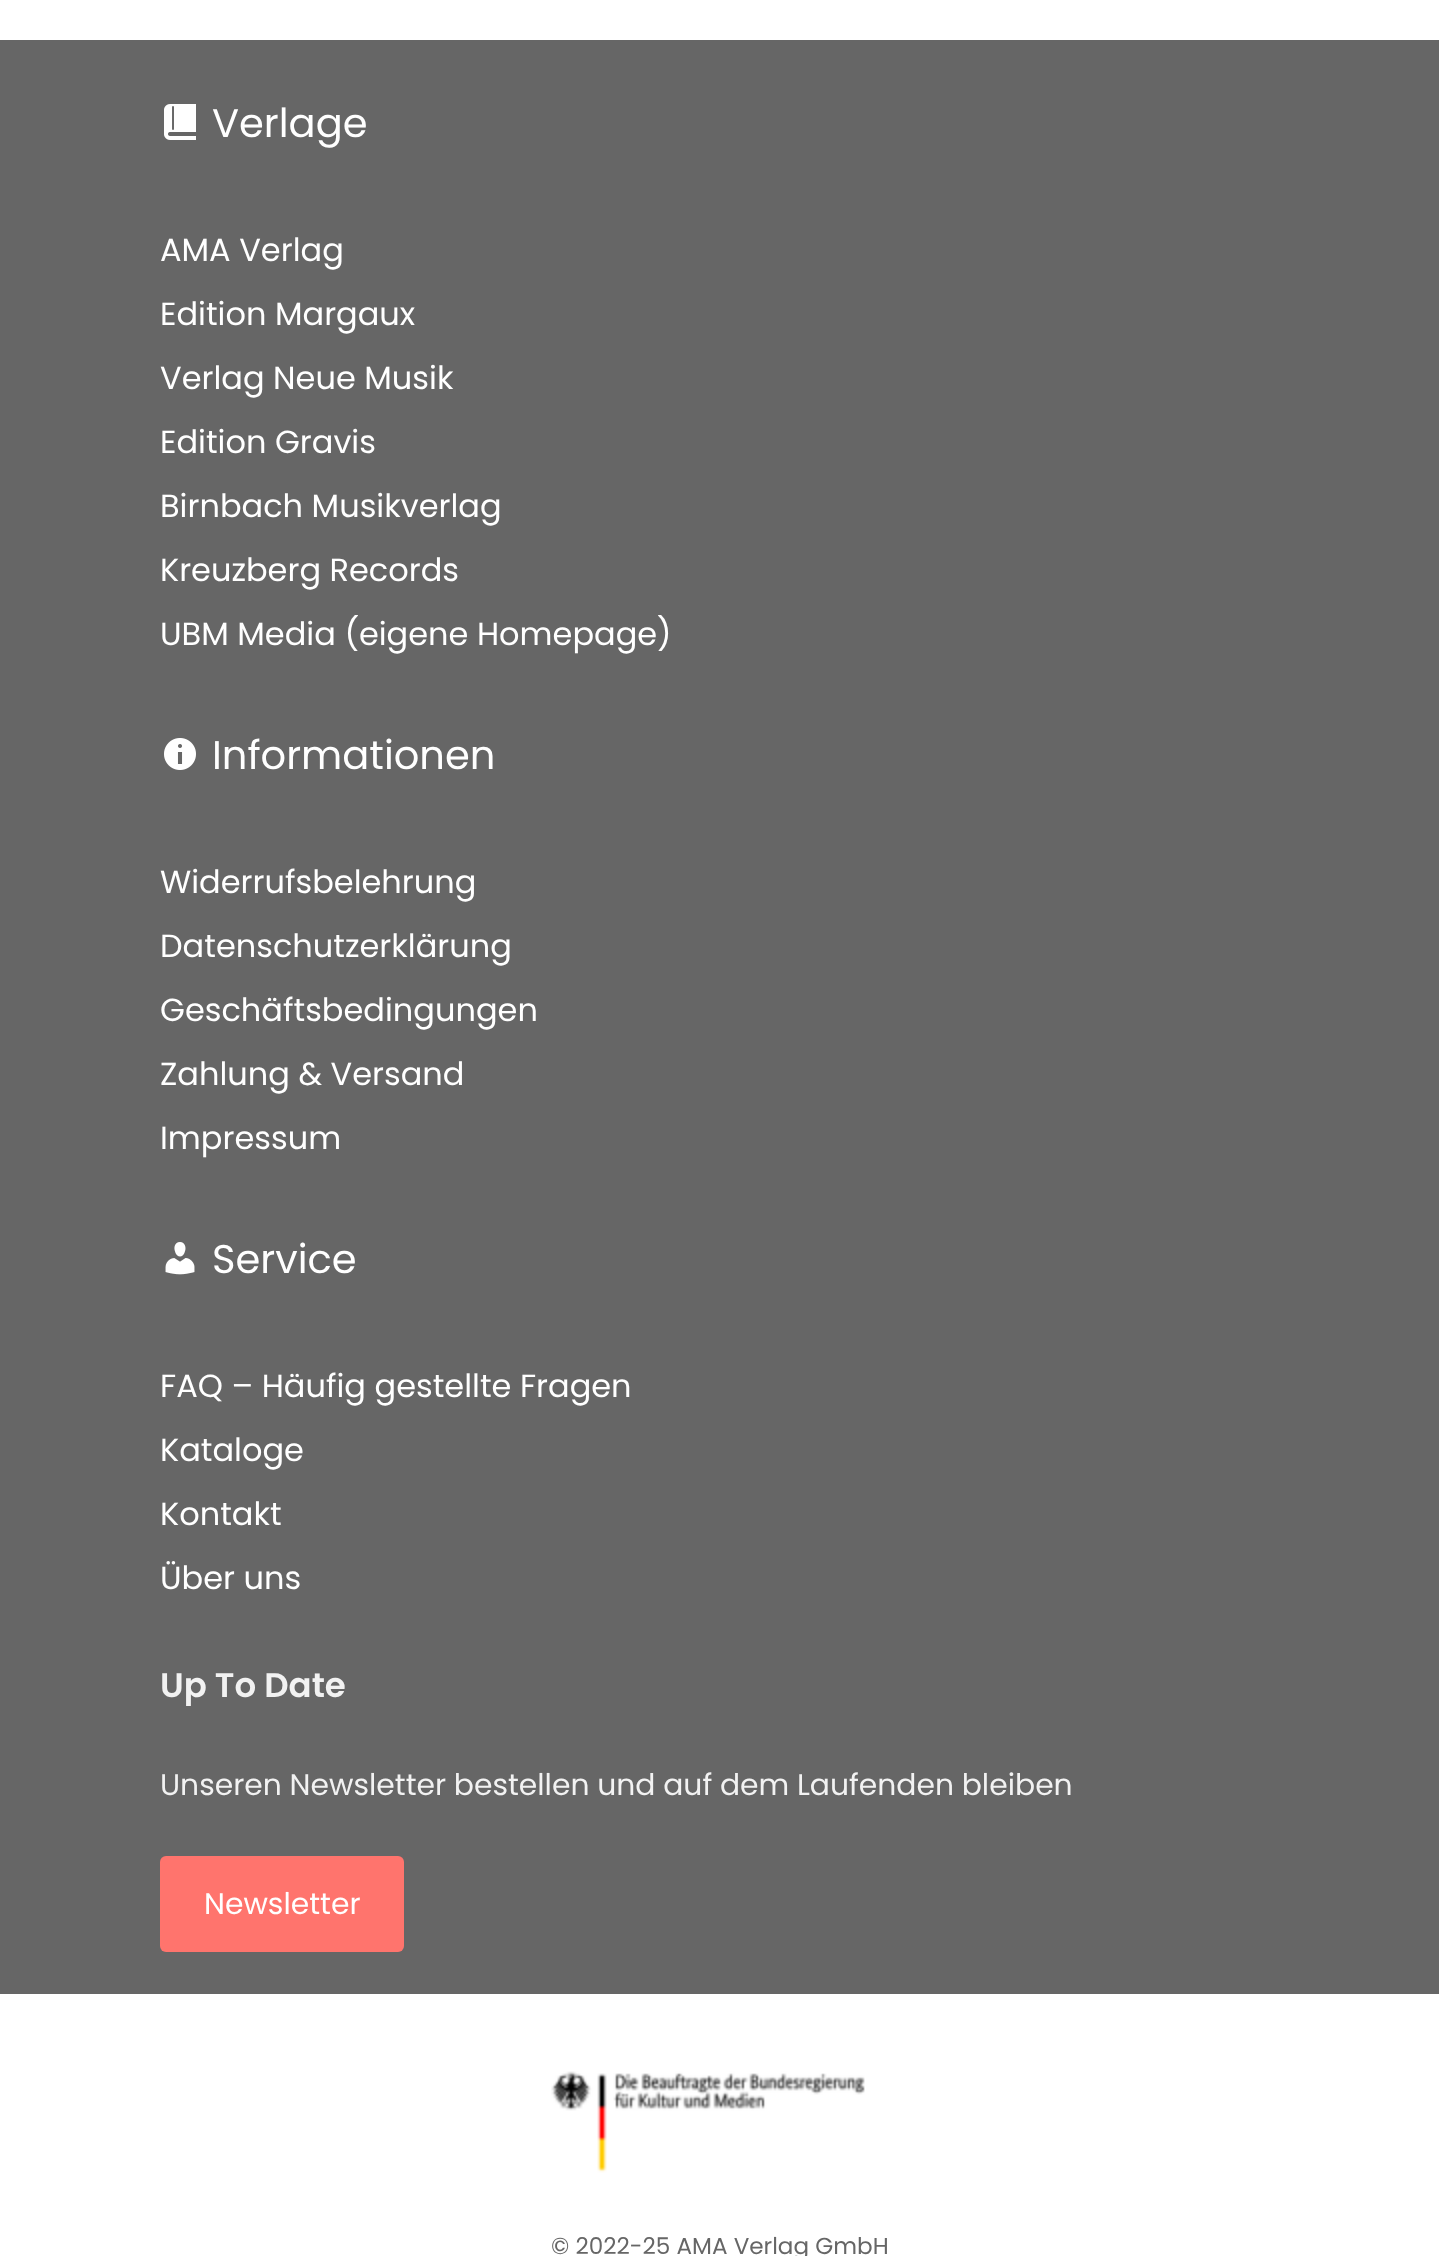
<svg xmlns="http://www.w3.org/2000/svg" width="1439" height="2256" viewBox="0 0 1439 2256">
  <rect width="100%" height="100%" fill="rgb(255,255,255)"/>
  <rect x="0" y="40" width="1439" height="1954" fill="rgb(102,102,102)"/>
  <image x="164" y="104" width="32" height="36" href="pic1.png"/>
  <text x="212" y="137" font-family="Poppins" font-size="40" fill="rgb(255,255,255)">Verlage</text>
  <g font-family="Poppins" font-size="32" fill="rgb(255,255,255)">
    <text x="160" y="261">AMA Verlag</text>
    <text x="160" y="325">Edition Margaux</text>
    <text x="160" y="389">Verlag Neue Musik</text>
    <text x="160" y="453">Edition Gravis</text>
    <text x="160" y="517">Birnbach Musikverlag</text>
    <text x="160" y="581">Kreuzberg Records</text>
    <text x="160" y="645">UBM Media (eigene Homepage)</text>
  </g>
  <image x="164" y="738" width="32" height="32" href="pic2.png"/>
  <text x="212" y="769" font-family="Poppins" font-size="40" fill="rgb(255,255,255)">Informationen</text>
  <g font-family="Poppins" font-size="32" fill="rgb(255,255,255)">
    <text x="160" y="893">Widerrufsbelehrung</text>
    <text x="160" y="957">Datenschutzerklärung</text>
    <text x="160" y="1021">Geschäftsbedingungen</text>
    <text x="160" y="1085">Zahlung &amp; Versand</text>
    <text x="160" y="1149">Impressum</text>
  </g>
  <image x="165" y="1242" width="30" height="33" href="pic3.png"/>
  <text x="212" y="1273" font-family="Poppins" font-size="40" fill="rgb(255,255,255)">Service</text>
  <g font-family="Poppins" font-size="32" fill="rgb(255,255,255)">
    <text x="160" y="1397">FAQ – Häufig gestellte Fragen</text>
    <text x="160" y="1461">Kataloge</text>
    <text x="160" y="1525">Kontakt</text>
    <text x="160" y="1589">Über uns</text>
  </g>
  <text x="160" y="1697" font-family="Poppins" font-size="34" font-weight="600" fill="rgb(242,242,242)">Up To Date</text>
  <text x="160" y="1795" word-spacing="-0.25" font-family="Poppins" font-size="29.8" fill="rgb(242,242,242)">Unseren Newsletter bestellen und auf dem Laufenden bleiben</text>
  <rect x="160" y="1856" width="244" height="96" rx="6" fill="rgb(255,116,109)"/>
  <text x="204" y="1914" font-family="Poppins" font-size="29.8" fill="rgb(255,255,255)">Newsletter</text>
  <image x="551" y="2071" width="314" height="102" href="pic4.png"/>
  <text x="551" y="2254" font-family="Poppins" font-size="23.1" fill="rgb(102,102,102)">© 2022-25 AMA Verlag GmbH</text>
</svg>
